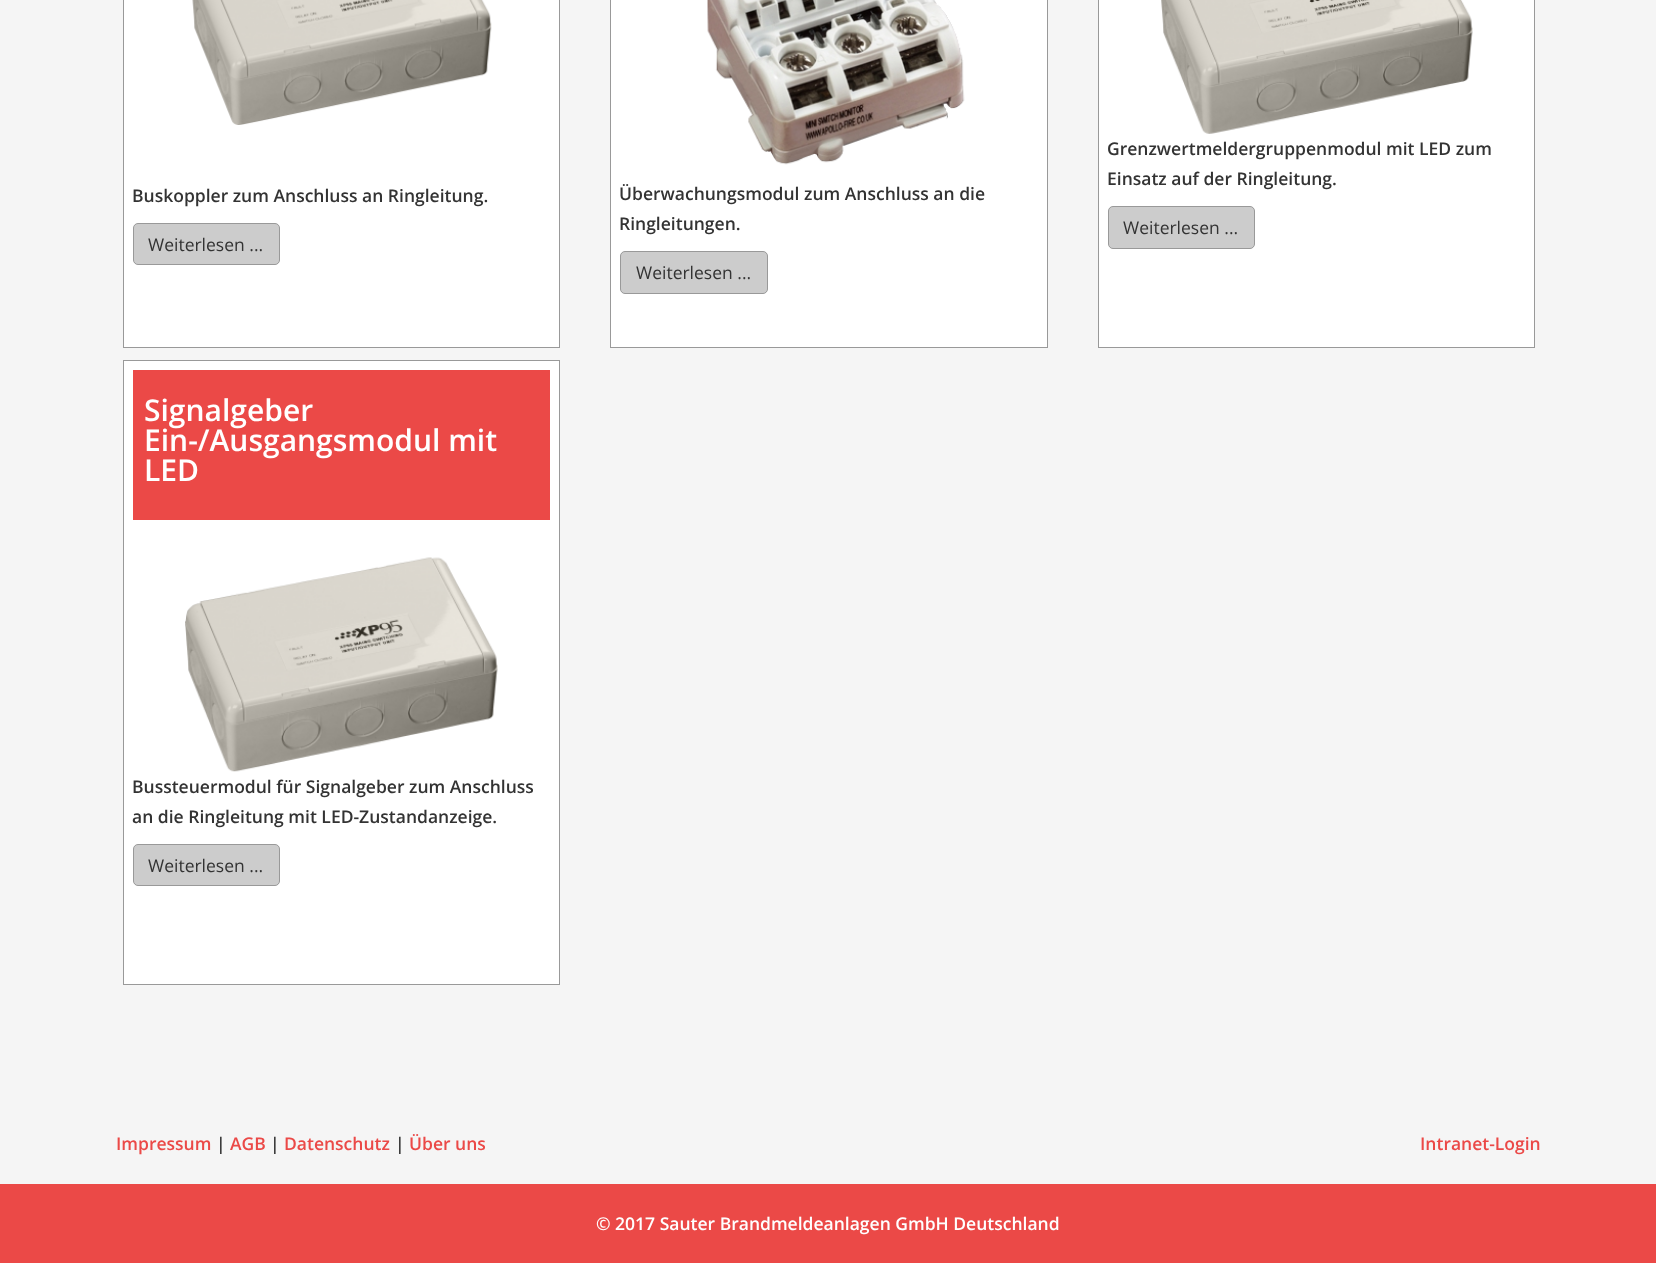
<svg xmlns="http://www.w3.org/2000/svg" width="1656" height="1263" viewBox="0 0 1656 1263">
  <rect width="100%" height="100%" fill="rgb(245,245,245)"/>
  <rect x="123.5" y="-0.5" width="436" height="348" fill="rgb(255,255,255)" stroke="rgb(153,153,153)"/>
  <image x="192" y="0" width="300" height="125" href="pic1.png"/>
  <text x="132" y="202" font-family="Open Sans" font-size="17.5" font-weight="600" fill="rgb(51,51,51)">Buskoppler zum Anschluss an Ringleitung.</text>
  <rect x="133.5" y="223.5" width="146" height="41" rx="4.5" fill="rgb(204,204,204)" stroke="rgb(153,153,153)"/>
  <text x="148" y="251" font-family="Open Sans" font-size="17.5" fill="rgb(51,51,51)">Weiterlesen ...</text>
  <rect x="610.5" y="-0.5" width="437" height="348" fill="rgb(255,255,255)" stroke="rgb(153,153,153)"/>
  <image x="707" y="0" width="258" height="165" href="pic2.png"/>
  <g font-family="Open Sans" font-size="17.5" font-weight="600" fill="rgb(51,51,51)">
    <text>
      <tspan x="619" y="200">Überwachungsmodul zum Anschluss an die</tspan>
      <tspan x="619" y="230">Ringleitungen.</tspan>
    </text>
  </g>
  <rect x="620.5" y="251.5" width="147" height="42" rx="4.5" fill="rgb(204,204,204)" stroke="rgb(153,153,153)"/>
  <text x="636" y="279" font-family="Open Sans" font-size="17.5" fill="rgb(51,51,51)">Weiterlesen ...</text>
  <rect x="1098.5" y="-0.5" width="436" height="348" fill="rgb(255,255,255)" stroke="rgb(153,153,153)"/>
  <image x="1161" y="0" width="312" height="134" href="pic3.png"/>
  <g font-family="Open Sans" font-size="17.5" font-weight="600" fill="rgb(51,51,51)">
    <text>
      <tspan x="1107" y="155">Grenzwertmeldergruppenmodul mit LED zum</tspan>
      <tspan x="1107" y="185">Einsatz auf der Ringleitung.</tspan>
    </text>
  </g>
  <rect x="1108.5" y="206.5" width="146" height="42" rx="4.5" fill="rgb(204,204,204)" stroke="rgb(153,153,153)"/>
  <text x="1123" y="234" font-family="Open Sans" font-size="17.5" fill="rgb(51,51,51)">Weiterlesen ...</text>
  <rect x="123.5" y="360.5" width="436" height="624" fill="rgb(255,255,255)" stroke="rgb(153,153,153)"/>
  <rect x="133" y="370" width="417" height="150" fill="rgb(235,73,71)"/>
  <g font-family="Open Sans" font-size="30" font-weight="600" fill="rgb(255,255,255)">
    <text>
      <tspan x="144" y="421">Signalgeber</tspan>
      <tspan x="144" y="451">Ein-/Ausgangsmodul mit</tspan>
      <tspan x="144" y="481">LED</tspan>
    </text>
  </g>
  <image x="185" y="557" width="313" height="215" href="pic4.png"/>
  <g font-family="Open Sans" font-size="17.5" font-weight="600" fill="rgb(51,51,51)">
    <text>
      <tspan x="132" y="793">Bussteuermodul für Signalgeber zum Anschluss</tspan>
      <tspan x="132" y="823">an die Ringleitung mit LED-Zustandanzeige.</tspan>
    </text>
  </g>
  <rect x="133.5" y="844.5" width="146" height="41" rx="4.5" fill="rgb(204,204,204)" stroke="rgb(153,153,153)"/>
  <text x="148" y="872" font-family="Open Sans" font-size="17.5" fill="rgb(51,51,51)">Weiterlesen ...</text>
  <text x="116" y="1150" font-family="Open Sans" font-size="17.5" font-weight="600" fill="rgb(235,73,71)">Impressum</text>
  <text x="216" y="1150" font-family="Open Sans" font-size="17.5" font-weight="600" fill="rgb(51,51,51)">|</text>
  <text x="230" y="1150" font-family="Open Sans" font-size="17.5" font-weight="600" fill="rgb(235,73,71)">AGB</text>
  <text x="270" y="1150" font-family="Open Sans" font-size="17.5" font-weight="600" fill="rgb(51,51,51)">|</text>
  <text x="284" y="1150" font-family="Open Sans" font-size="17.5" font-weight="600" fill="rgb(235,73,71)">Datenschutz</text>
  <text x="395" y="1150" font-family="Open Sans" font-size="17.5" font-weight="600" fill="rgb(51,51,51)">|</text>
  <g font-family="Open Sans" font-size="17.5" font-weight="600" fill="rgb(235,73,71)">
    <text x="409" y="1150">Über uns</text>
    <text x="1420" y="1150">Intranet-Login</text>
  </g>
  <rect x="0" y="1184" width="1656" height="79" fill="rgb(235,73,71)"/>
  <text x="596" y="1230" font-family="Open Sans" font-size="17.5" font-weight="600" fill="rgb(255,255,255)">© 2017 Sauter Brandmeldeanlagen GmbH Deutschland</text>
</svg>
